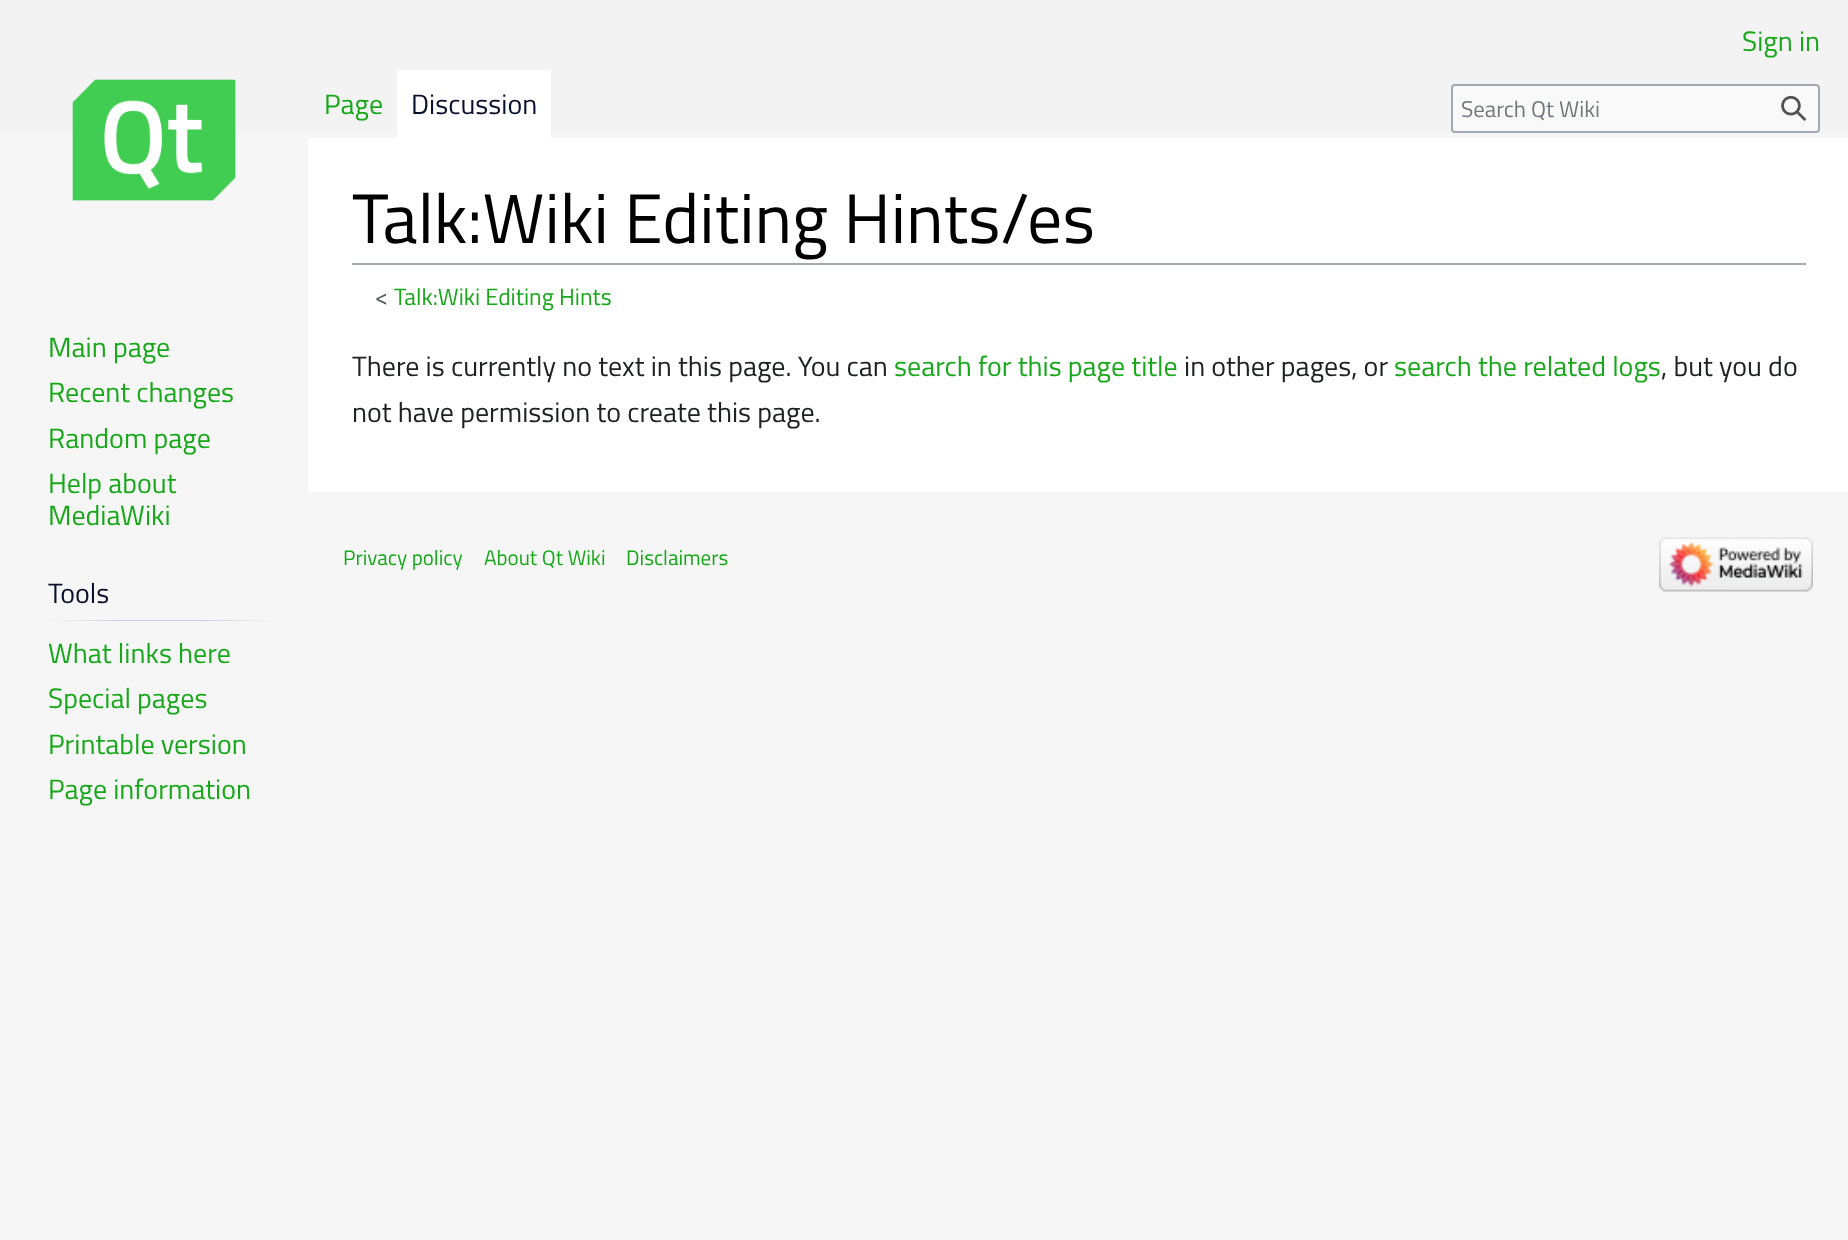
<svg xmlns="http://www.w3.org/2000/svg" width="1848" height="1240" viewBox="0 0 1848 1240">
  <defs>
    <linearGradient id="g1" gradientUnits="userSpaceOnUse" x1="47" y1="620" x2="277" y2="620"><stop offset="0" stop-color="rgb(246,246,246)"/><stop offset="0.33" stop-color="rgb(200,204,209)"/><stop offset="0.66" stop-color="rgb(200,204,209)"/><stop offset="1" stop-color="rgb(246,246,246)"/></linearGradient>
  </defs>
  <rect width="100%" height="100%" fill="rgb(246,246,246)"/>
  <rect x="0" y="0" width="1848" height="133" fill="rgb(243,243,244)"/>
  <g font-family="Titillium Web" font-size="28" fill="rgb(23,168,26)">
    <text x="1742" y="51">Sign in</text>
    <text x="324" y="114">Page</text>
  </g>
  <rect x="397" y="70" width="154" height="68" fill="rgb(255,255,255)"/>
  <text x="411" y="114" font-family="Titillium Web" font-size="28" fill="rgb(9,16,43)">Discussion</text>
  <rect x="1452" y="85" width="367" height="47" rx="3" fill="rgb(249,249,250)" stroke="rgb(162,169,177)" stroke-width="2"/>
  <text x="1461" y="117" font-family="Titillium Web" font-size="22.75" fill="rgb(114,119,125)">Search Qt Wiki</text>
  <image x="1781" y="95" width="26" height="26" href="pic1.png"/>
  <image x="72" y="79" width="164" height="122" href="pic2.png"/>
  <g font-family="Titillium Web" font-size="28" fill="rgb(23,168,26)">
    <text>
      <tspan x="48" y="357">Main page</tspan>
      <tspan x="48" y="402">Recent changes</tspan>
      <tspan x="48" y="448">Random page</tspan>
      <tspan x="48" y="493">Help about</tspan>
      <tspan x="48" y="525">MediaWiki</tspan>
    </text>
  </g>
  <rect x="47" y="620" width="230" height="1" fill="url(#g1)"/>
  <text x="48" y="603" font-family="Titillium Web" font-size="28" fill="rgb(9,16,43)">Tools</text>
  <g font-family="Titillium Web" font-size="28" fill="rgb(23,168,26)">
    <text>
      <tspan x="48" y="663">What links here</tspan>
      <tspan x="48" y="708">Special pages</tspan>
      <tspan x="48" y="754">Printable version</tspan>
      <tspan x="48" y="799">Page information</tspan>
    </text>
  </g>
  <rect x="310" y="140" width="1538" height="350" fill="rgb(255,255,255)"/>
  <rect x="308" y="138" width="1540" height="2" fill="rgb(255,255,255)"/>
  <rect x="308" y="490" width="1540" height="2" fill="rgb(255,255,255)"/>
  <rect x="308" y="138" width="2" height="354" fill="rgb(255,255,255)"/>
  <rect x="352" y="263" width="1454" height="2" fill="rgb(162,169,177)"/>
  <text x="352" y="243" font-family="Titillium Web" font-size="70" fill="rgb(0,0,0)">Talk:Wiki Editing Hints/es</text>
  <text x="375" y="305" font-family="Titillium Web" font-size="23.5" fill="rgb(84,89,93)">&lt;</text>
  <text x="394" y="305" font-family="Titillium Web" font-size="23.5" fill="rgb(23,168,26)">Talk:Wiki Editing Hints</text>
  <text x="352" y="376" font-family="Titillium Web" font-size="28" fill="rgb(32,33,34)">There is currently no text in this page. You can</text>
  <text x="894" y="376" font-family="Titillium Web" font-size="28" fill="rgb(23,168,26)">search for this page title</text>
  <text x="1184" y="376" font-family="Titillium Web" font-size="28" fill="rgb(32,33,34)">in other pages, or</text>
  <text x="1394" y="376" font-family="Titillium Web" font-size="28" fill="rgb(23,168,26)">search the related logs</text>
  <g font-family="Titillium Web" font-size="28" fill="rgb(32,33,34)">
    <text x="1661" y="376">, but you do</text>
    <text x="352" y="422">not have permission to create this page.</text>
  </g>
  <g font-family="Titillium Web" font-size="21" fill="rgb(23,168,26)">
    <text x="343" y="565">Privacy policy</text>
    <text x="484" y="565">About Qt Wiki</text>
    <text x="626" y="565">Disclaimers</text>
  </g>
  <image x="1659" y="537" width="154" height="55" href="pic3.png"/>
</svg>
